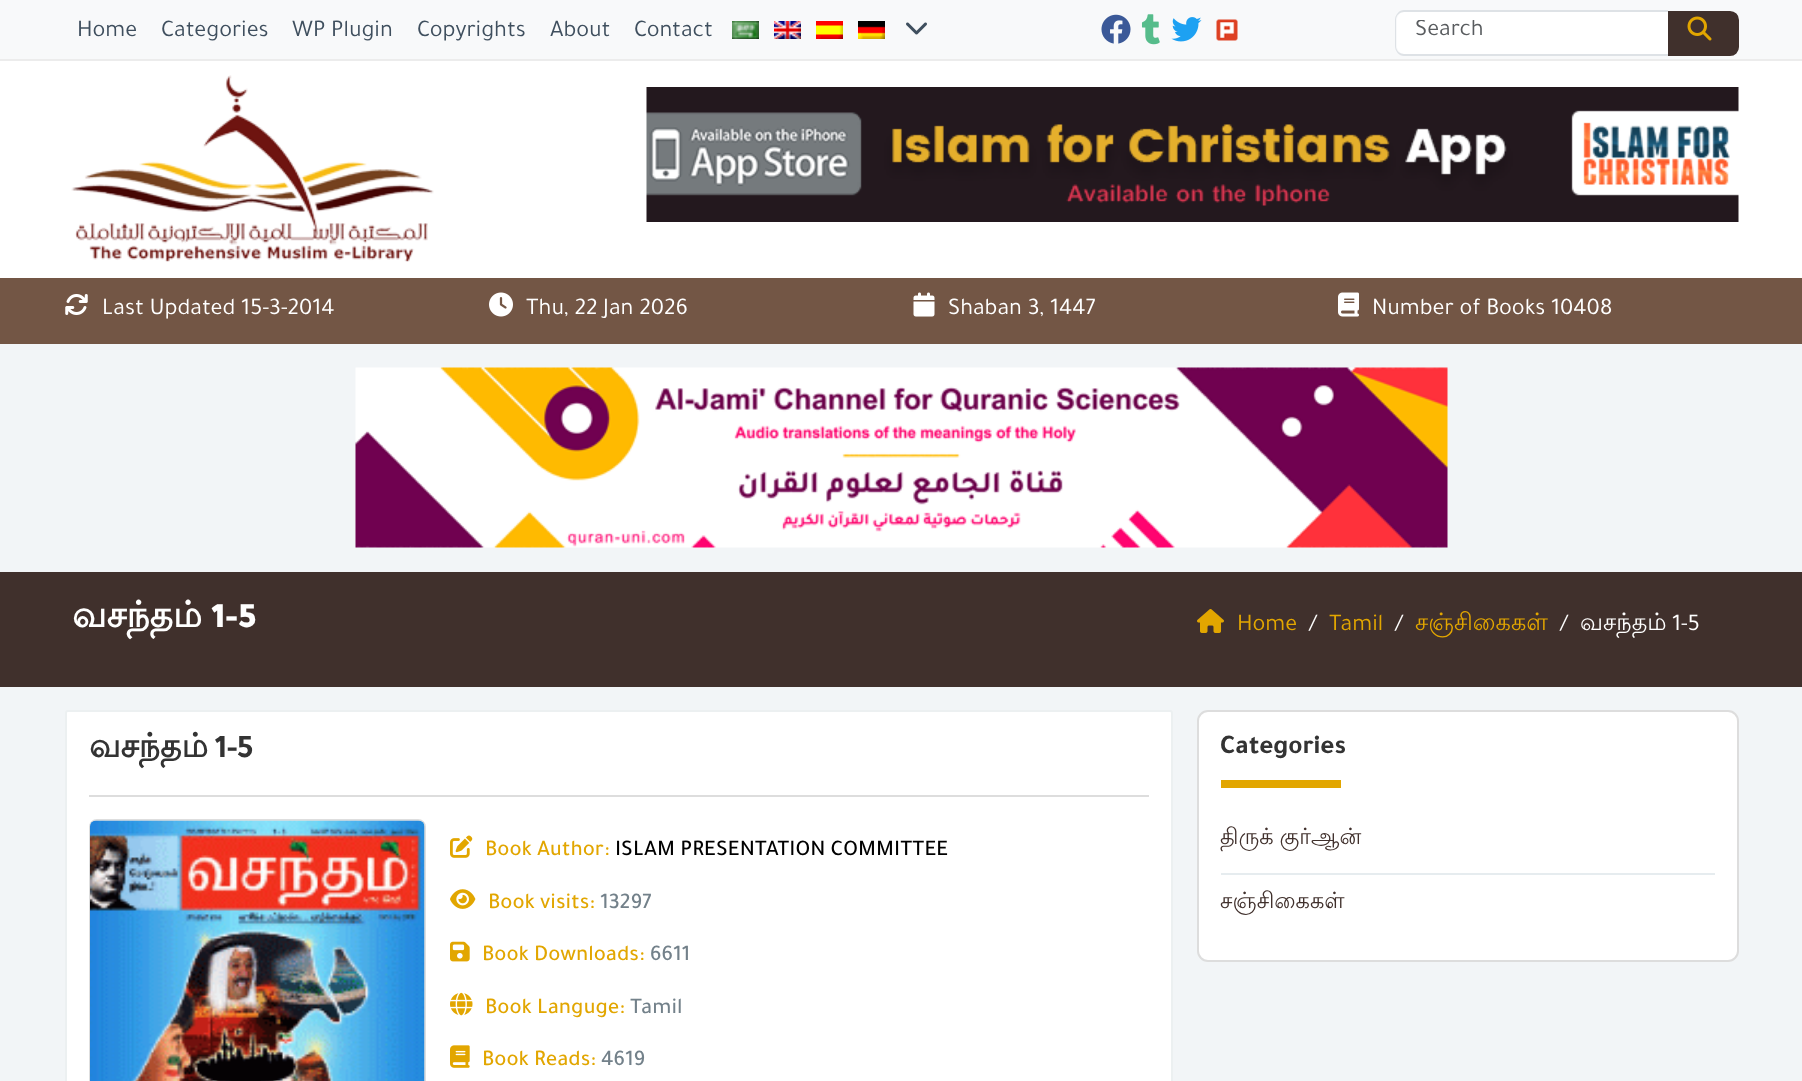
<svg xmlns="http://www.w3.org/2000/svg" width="1802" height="1081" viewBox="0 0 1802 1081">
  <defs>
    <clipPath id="clip1"><rect x="1415" y="20" width="235" height="28"/></clipPath>
  </defs>
  <rect width="100%" height="100%" fill="rgb(242,245,247)"/>
  <rect x="0" y="61" width="1802" height="217" fill="rgb(255,255,255)"/>
  <rect x="0" y="0" width="1802" height="59" fill="rgb(248,249,250)"/>
  <rect x="0" y="59" width="1802" height="2" fill="rgb(236,236,236)"/>
  <g font-family="Tajawal" font-size="24" fill="rgb(63,79,94)">
    <text x="77" y="36">Home</text>
    <text x="161" y="36">Categories</text>
    <text x="292" y="36">WP Plugin</text>
    <text x="417" y="36">Copyrights</text>
    <text x="550" y="36">About</text>
    <text x="634" y="36">Contact</text>
  </g>
  <image x="732" y="21" width="27" height="18" href="pic1.png"/>
  <image x="774" y="21" width="27" height="18" href="pic2.png"/>
  <image x="816" y="21" width="27" height="18" href="pic3.png"/>
  <image x="858" y="21" width="27" height="18" href="pic4.png"/>
  <image x="906" y="22" width="21" height="13" href="pic5.png"/>
  <image x="1101" y="14" width="30" height="30" href="pic6.png"/>
  <image x="1141" y="14" width="19" height="31" href="pic7.png"/>
  <image x="1171" y="17" width="31" height="25" href="pic8.png"/>
  <image x="1216" y="19" width="22" height="22" href="pic9.png"/>
  <path d="M1405 12H1668V54H1405C1400.5 54 1397 50.5 1397 46V20C1397 15.5 1400.5 12 1405 12Z" fill="rgb(255,255,255)"/>
  <path d="M1404 10H1668V56H1404C1399 56 1395 51 1395 46V20C1395 15 1399 10 1404 10ZM1404 12H1668V54H1404C1400 54 1396 51 1396 46V20C1396 15 1400 12 1404 12Z" fill="rgb(222,226,230)" fill-rule="evenodd"/>
  <g clip-path="url(#clip1)">
    <text x="1415" y="35" font-family="Tajawal" font-size="24" fill="rgb(89,92,95)">Search</text>
  </g>
  <path d="M1669 12H1730C1734.5 12 1738 15.5 1738 20V47C1738 51.5 1734.5 55 1730 55H1669Z" fill="rgb(64,48,44)" stroke="rgb(64,48,44)" stroke-width="2"/>
  <image x="1687" y="16" width="25" height="25" href="pic10.png"/>
  <image x="71" y="75" width="363" height="187" href="pic11.png"/>
  <image x="646" y="87" width="1093" height="135" href="pic12.png"/>
  <rect x="0" y="278" width="1802" height="66" fill="rgb(115,86,69)"/>
  <image x="65" y="294" width="23" height="21" href="pic13.png"/>
  <text x="102" y="314" font-family="Tajawal" font-size="24" fill="rgb(255,255,255)">Last Updated 15-3-2014</text>
  <image x="489" y="292" width="24" height="25" href="pic14.png"/>
  <text x="526" y="314" font-family="Tajawal" font-size="24" fill="rgb(255,255,255)">Thu, 22 Jan 2026</text>
  <image x="913" y="292" width="22" height="25" href="pic15.png"/>
  <text x="948" y="314" font-family="Tajawal" font-size="24" fill="rgb(255,255,255)">Shaban 3, 1447</text>
  <image x="1338" y="292" width="21" height="25" href="pic16.png"/>
  <text x="1372" y="314" font-family="Tajawal" font-size="24" fill="rgb(255,255,255)">Number of Books 10408</text>
  <image x="355" y="367" width="1093" height="181" href="pic17.png"/>
  <rect x="0" y="572" width="1802" height="115" fill="rgb(64,48,44)"/>
  <text x="72" y="627" font-family="Lohit Tamil" font-size="36" font-weight="bold" fill="rgb(255,255,255)">வசந்தம்</text>
  <text x="211" y="627" font-family="Tajawal" font-size="36" font-weight="900" fill="rgb(255,255,255)">1-5</text>
  <image x="1197" y="609" width="27" height="24" href="pic18.png"/>
  <text x="1237" y="630" font-family="Tajawal" font-size="24" fill="rgb(226,166,0)">Home</text>
  <text x="1309" y="630" font-family="Tajawal" font-size="24" fill="rgb(255,255,255)">/</text>
  <text x="1329" y="630" font-family="Tajawal" font-size="24" fill="rgb(226,166,0)">Tamil</text>
  <text x="1395" y="630" font-family="Tajawal" font-size="24" fill="rgb(255,255,255)">/</text>
  <text x="1415" y="630" font-family="Lohit Tamil" font-size="24" fill="rgb(226,166,0)">சஞ்சிகைகள்</text>
  <text x="1560" y="630" font-family="Tajawal" font-size="24" fill="rgb(255,255,255)">/</text>
  <text x="1580" y="630" font-family="Lohit Tamil" font-size="24" fill="rgb(255,255,255)">வசந்தம்</text>
  <text x="1672" y="630" font-family="Tajawal" font-size="24" fill="rgb(255,255,255)">1-5</text>
  <rect x="66" y="711" width="1106" height="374" rx="2" fill="rgb(255,255,255)" stroke="rgb(236,240,241)" stroke-width="2"/>
  <rect x="89" y="795" width="1060" height="2" fill="rgb(221,221,221)"/>
  <text x="89" y="757" font-family="Lohit Tamil" font-size="33" font-weight="bold" fill="rgb(51,51,51)">வசந்தம்</text>
  <text x="215" y="757" font-family="Tajawal" font-size="33" font-weight="bold" fill="rgb(51,51,51)">1-5</text>
  <rect x="90" y="820" width="335" height="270" rx="7" fill="none" stroke="rgb(222,222,222)" stroke-width="2"/>
  <image x="90" y="820" width="335" height="261" href="pic19.png"/>
  <image x="450" y="835" width="23" height="23" href="pic20.png"/>
  <text x="485" y="855" font-family="Tajawal" font-size="22.5" font-weight="500" fill="rgb(226,166,0)">Book Author:</text>
  <text x="615" y="855" font-family="Tajawal" font-size="22.5" font-weight="500" fill="rgb(0,0,0)">ISLAM PRESENTATION COMMITTEE</text>
  <image x="450" y="889" width="26" height="20" href="pic21.png"/>
  <text x="488" y="908" font-family="Tajawal" font-size="22.5" font-weight="500" fill="rgb(226,166,0)">Book visits:</text>
  <text x="600" y="908" font-family="Tajawal" font-size="22.5" font-weight="500" fill="rgb(115,129,138)">13297</text>
  <image x="450" y="941" width="20" height="21" href="pic22.png"/>
  <text x="482" y="960" font-family="Tajawal" font-size="22.5" font-weight="500" fill="rgb(226,166,0)">Book Downloads:</text>
  <text x="650" y="960" font-family="Tajawal" font-size="22.5" font-weight="500" fill="rgb(115,129,138)">6611</text>
  <image x="450" y="992" width="23" height="24" href="pic23.png"/>
  <text x="485" y="1013" font-family="Tajawal" font-size="22.5" font-weight="500" fill="rgb(226,166,0)">Book Languge:</text>
  <text x="630" y="1013" font-family="Tajawal" font-size="22.5" font-weight="500" fill="rgb(115,129,138)">Tamil</text>
  <image x="450" y="1045" width="20" height="23" href="pic24.png"/>
  <text x="482" y="1065" font-family="Tajawal" font-size="22.5" font-weight="500" fill="rgb(226,166,0)">Book Reads:</text>
  <text x="601" y="1065" font-family="Tajawal" font-size="22.5" font-weight="500" fill="rgb(115,129,138)">4619</text>
  <rect x="1198" y="711" width="540" height="250" rx="10" fill="rgb(255,255,255)" stroke="rgb(221,221,221)" stroke-width="2"/>
  <text x="1220" y="753" font-family="Tajawal" font-size="27" font-weight="bold" fill="rgb(51,51,51)">Categories</text>
  <rect x="1221" y="780" width="120" height="8" fill="rgb(226,166,0)"/>
  <rect x="1221" y="873" width="494" height="2" fill="rgb(230,236,239)"/>
  <g font-family="Lohit Tamil" font-size="22.5" fill="rgb(64,48,44)">
    <text x="1220" y="844" word-spacing="-1">திருக் குர்ஆன்</text>
    <text x="1220" y="908">சஞ்சிகைகள்</text>
  </g>
</svg>
